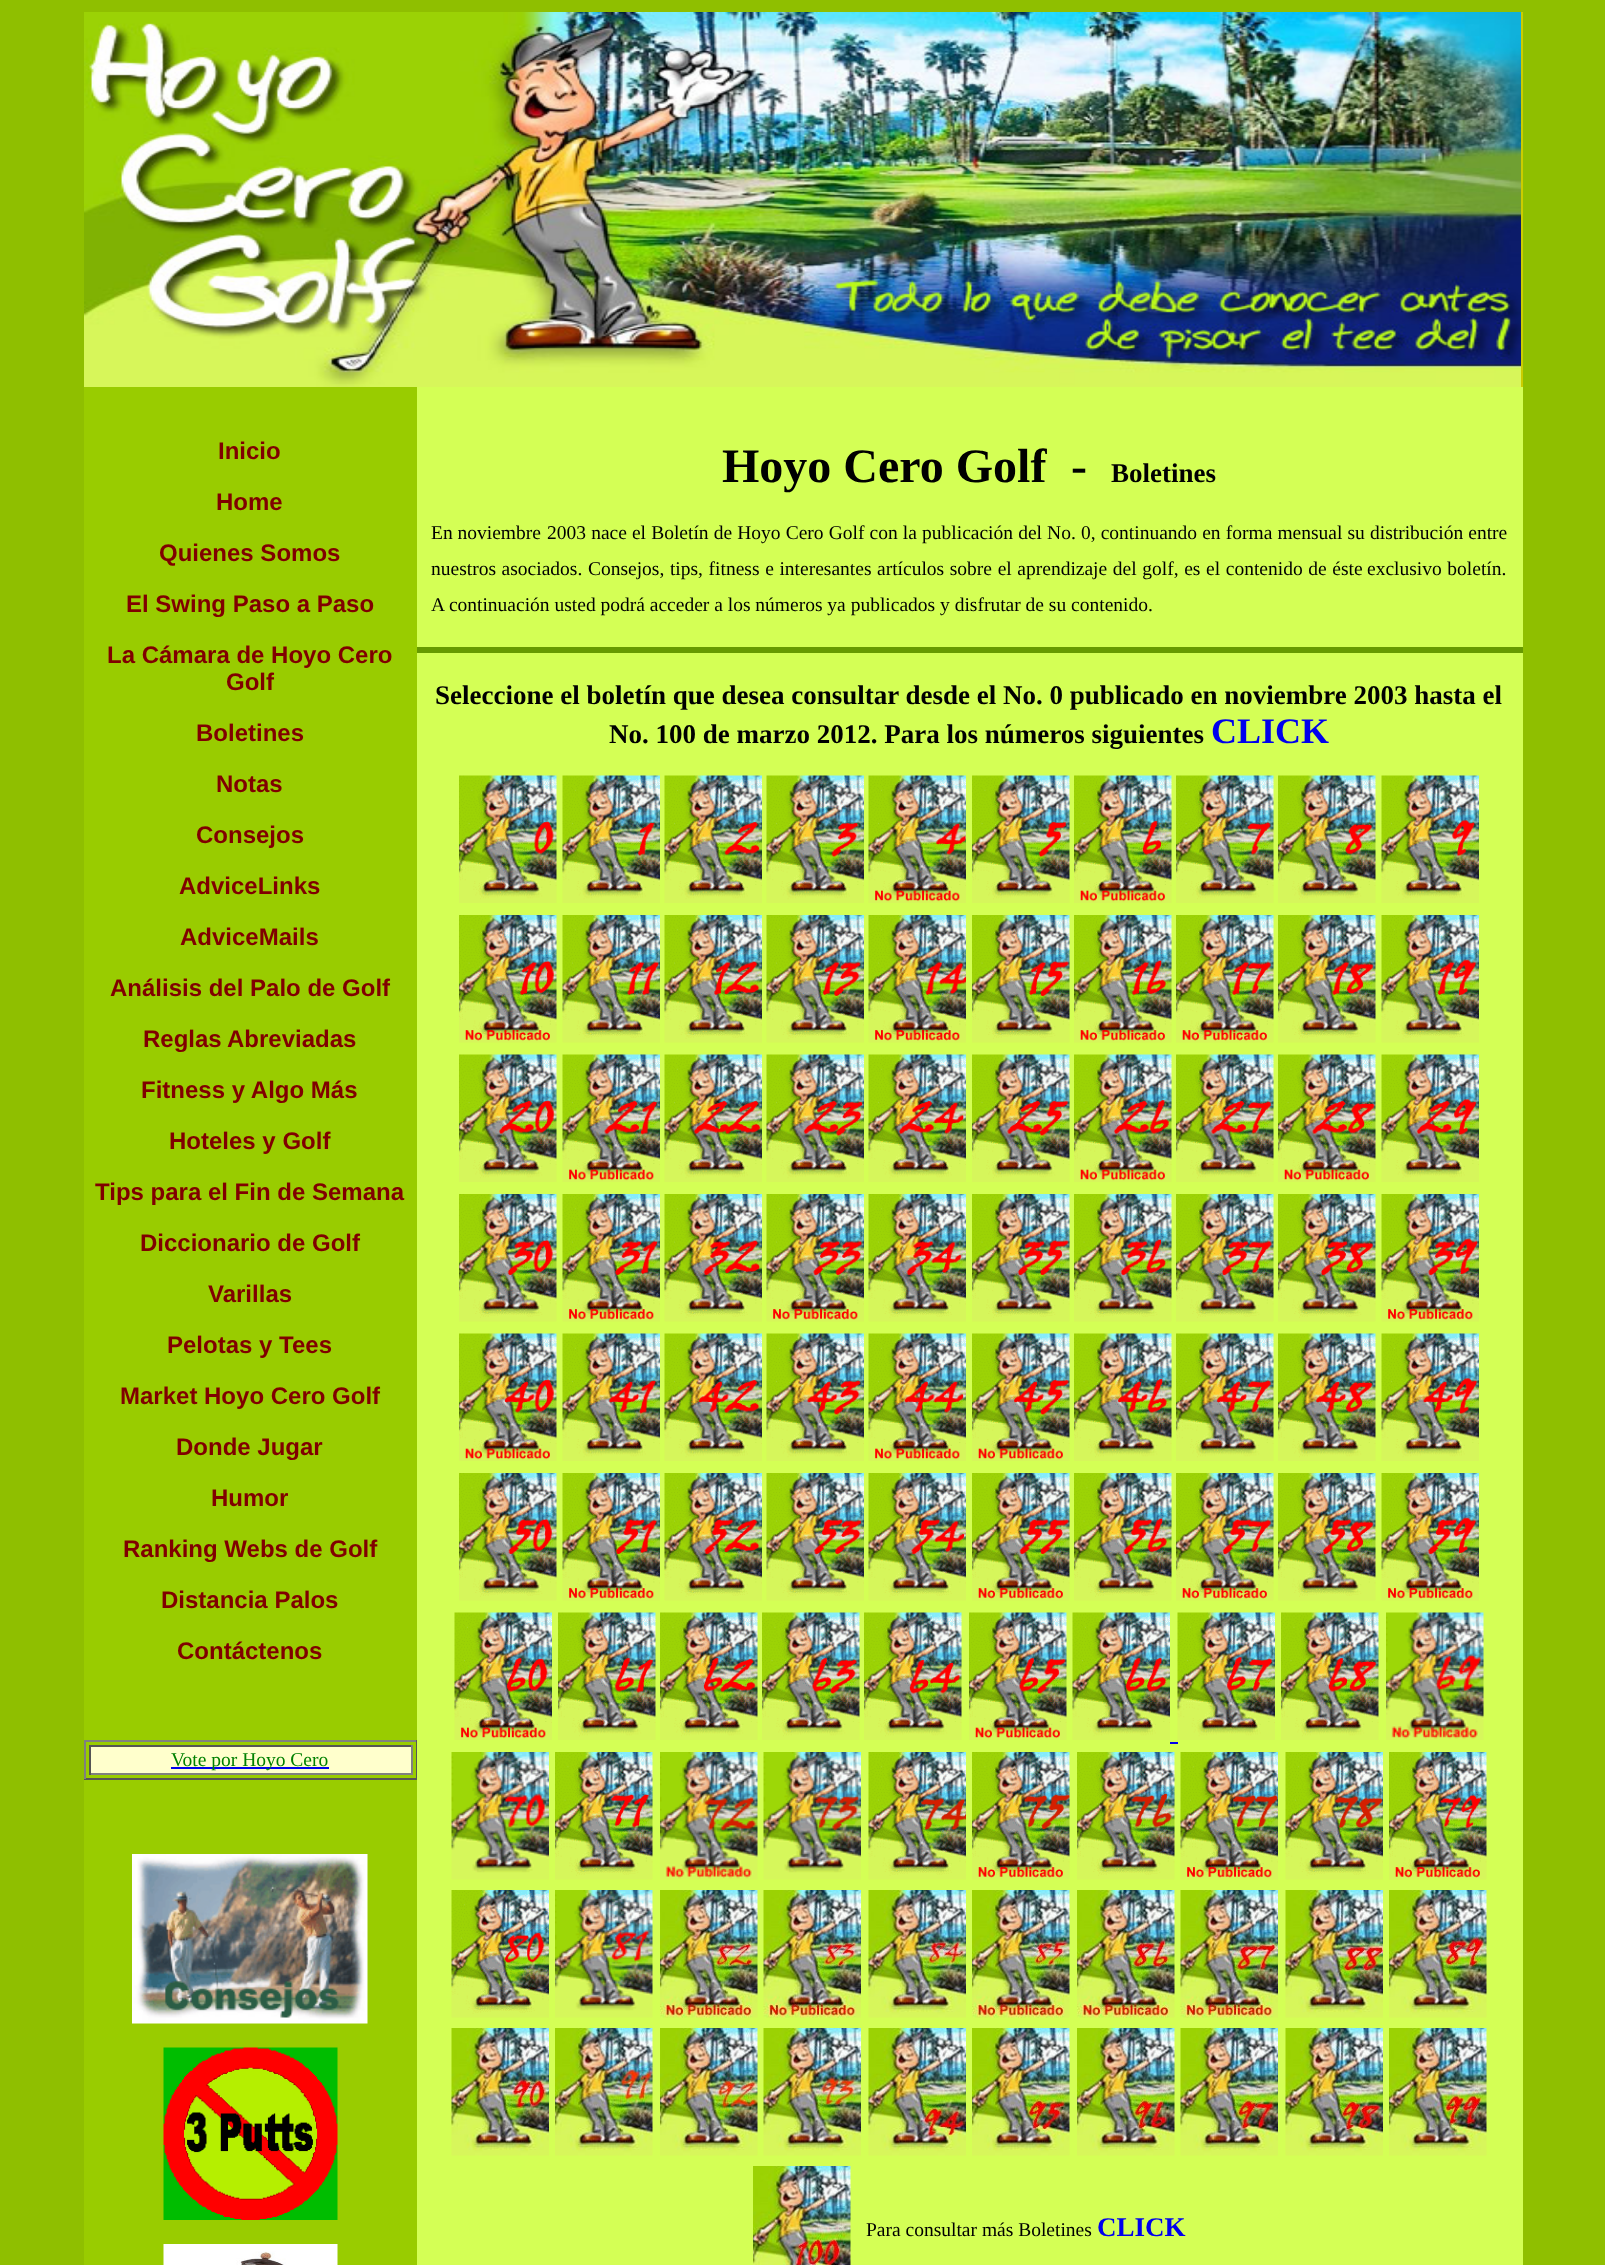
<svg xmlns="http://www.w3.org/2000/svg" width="1605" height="2265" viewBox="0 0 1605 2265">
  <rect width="100%" height="100%" fill="rgb(143,191,0)"/>
  <rect x="1521" y="12" width="2" height="375" fill="rgb(204,204,0)"/>
  <image x="84" y="12" width="1437" height="375" href="pic1.png"/>
  <rect x="84" y="387" width="333" height="1878" fill="rgb(153,204,0)"/>
  <g font-family="Liberation Sans" font-size="24" font-weight="bold" fill="rgb(128,0,0)">
    <text x="218" y="459">Inicio</text>
    <text x="216" y="510">Home</text>
    <text x="159" y="561">Quienes Somos</text>
    <text x="126" y="612">El Swing Paso a Paso</text>
    <text x="107" y="663">La Cámara de Hoyo Cero</text>
    <text x="226" y="690">Golf</text>
    <text x="196" y="741">Boletines</text>
    <text x="216" y="792">Notas</text>
    <text x="196" y="843">Consejos</text>
    <text x="179" y="894">AdviceLinks</text>
    <text x="180" y="945">AdviceMails</text>
    <text x="110" y="996">Análisis del Palo de Golf</text>
    <text x="143" y="1047">Reglas</text>
    <text x="227" y="1047">Abreviadas</text>
    <text x="141" y="1098">Fitness y Algo Más</text>
    <text x="169" y="1149">Hoteles y Golf</text>
    <text x="95" y="1200">Tips para el Fin de Semana</text>
    <text x="140" y="1251">Diccionario de Golf</text>
    <text x="208" y="1302">Varillas</text>
    <text x="167" y="1353">Pelotas y Tees</text>
    <text x="120" y="1404">Market Hoyo Cero Golf</text>
    <text x="176" y="1455">Donde Jugar</text>
    <text x="211" y="1506">Humor</text>
    <text x="123" y="1557">Ranking Webs de Golf</text>
    <text x="161" y="1608">Distancia Palos</text>
    <text x="177" y="1659">Contáctenos</text>
  </g>
  <rect x="84" y="1740" width="333" height="2" fill="rgb(128,128,128)"/>
  <rect x="416" y="1740" width="1" height="39" fill="rgb(85,85,85)"/>
  <rect x="84" y="1778" width="333" height="2" fill="rgb(85,85,85)"/>
  <rect x="84" y="1740" width="2" height="39" fill="rgb(128,128,128)"/>
  <rect x="91" y="1747" width="320" height="26" fill="rgb(255,255,204)"/>
  <rect x="89" y="1745" width="324" height="2" fill="rgb(85,85,85)"/>
  <rect x="411" y="1745" width="2" height="30" fill="rgb(128,128,128)"/>
  <rect x="89" y="1773" width="324" height="2" fill="rgb(128,128,128)"/>
  <rect x="89" y="1745" width="2" height="30" fill="rgb(85,85,85)"/>
  <rect x="171" y="1767" width="158" height="2" fill="rgb(0,0,238)"/>
  <text x="171" y="1766" font-family="Liberation Serif" font-size="19.5" fill="rgb(0,128,0)">Vote por Hoyo Cero</text>
  <image x="132" y="1854" width="236" height="170" href="pic2.png"/>
  <image x="163" y="2047" width="175" height="173" href="pic3.png"/>
  <image x="163" y="2244" width="175" height="21" href="pic4.png"/>
  <rect x="417" y="387" width="1106" height="1878" fill="rgb(212,255,85)"/>
  <g font-family="Liberation Serif" font-size="48" font-weight="bold" fill="rgb(0,0,0)">
    <text x="722" y="482">Hoyo Cero Golf</text>
    <text x="1071" y="482">-</text>
  </g>
  <text x="1111" y="482" font-family="Liberation Serif" font-size="27" font-weight="bold" fill="rgb(0,0,0)">Boletines</text>
  <g font-family="Liberation Serif" font-size="19.5" fill="rgb(0,0,0)">
    <text x="431" y="539">En noviembre</text>
    <text x="547" y="539" word-spacing="0.25">2003 nace el Boletín de Hoyo Cero Golf con la publicación del No. 0, continuando en forma mensual su distribución entre</text>
    <text x="431" y="575" word-spacing="0.75">nuestros asociados. Consejos, tips, fitness e interesantes</text>
    <text x="877" y="575" word-spacing="0.75">artículos sobre el aprendizaje del golf, es el contenido de éste</text>
    <text x="1367" y="575" word-spacing="0.75">exclusivo boletín.</text>
    <text x="431" y="611">A continuación usted podrá acceder a los números ya publicados y disfrutar de su contenido.</text>
  </g>
  <rect x="417" y="647" width="1106" height="6" fill="rgb(102,153,0)"/>
  <g font-family="Liberation Serif" font-size="27" font-weight="bold" fill="rgb(0,0,0)">
    <text x="435" y="704">Seleccione el boletín que desea consultar desde el No. 0 publicado en noviembre 2003 hasta el</text>
    <text x="609" y="743">No. 100 de marzo 2012. Para los números siguientes</text>
  </g>
  <text x="1211" y="743" font-family="Liberation Serif" font-size="36" font-weight="bold" fill="rgb(0,0,238)">CLICK</text>
  <image x="459" y="775" width="98" height="128" href="pic5.png"/>
  <image x="562" y="775" width="98" height="128" href="pic6.png"/>
  <image x="664" y="775" width="98" height="128" href="pic7.png"/>
  <image x="766" y="775" width="98" height="128" href="pic8.png"/>
  <image x="868" y="775" width="98" height="128" href="pic9.png"/>
  <image x="972" y="775" width="98" height="128" href="pic10.png"/>
  <image x="1074" y="775" width="98" height="128" href="pic11.png"/>
  <image x="1176" y="775" width="98" height="128" href="pic12.png"/>
  <image x="1278" y="775" width="98" height="128" href="pic13.png"/>
  <image x="1381" y="775" width="98" height="128" href="pic14.png"/>
  <image x="459" y="915" width="98" height="128" href="pic15.png"/>
  <image x="562" y="915" width="98" height="128" href="pic16.png"/>
  <image x="664" y="915" width="98" height="128" href="pic17.png"/>
  <image x="766" y="915" width="98" height="128" href="pic18.png"/>
  <image x="868" y="915" width="98" height="128" href="pic19.png"/>
  <image x="972" y="915" width="98" height="128" href="pic20.png"/>
  <image x="1074" y="915" width="98" height="128" href="pic21.png"/>
  <image x="1176" y="915" width="98" height="128" href="pic22.png"/>
  <image x="1278" y="915" width="98" height="128" href="pic23.png"/>
  <image x="1381" y="915" width="98" height="128" href="pic24.png"/>
  <image x="459" y="1054" width="98" height="128" href="pic25.png"/>
  <image x="562" y="1054" width="98" height="128" href="pic26.png"/>
  <image x="664" y="1054" width="98" height="128" href="pic27.png"/>
  <image x="766" y="1054" width="98" height="128" href="pic28.png"/>
  <image x="868" y="1054" width="98" height="128" href="pic29.png"/>
  <image x="972" y="1054" width="98" height="128" href="pic30.png"/>
  <image x="1074" y="1054" width="98" height="128" href="pic31.png"/>
  <image x="1176" y="1054" width="98" height="128" href="pic32.png"/>
  <image x="1278" y="1054" width="98" height="128" href="pic33.png"/>
  <image x="1381" y="1054" width="98" height="128" href="pic34.png"/>
  <image x="459" y="1194" width="98" height="128" href="pic35.png"/>
  <image x="562" y="1194" width="98" height="128" href="pic36.png"/>
  <image x="664" y="1194" width="98" height="128" href="pic37.png"/>
  <image x="766" y="1194" width="98" height="128" href="pic38.png"/>
  <image x="868" y="1194" width="98" height="128" href="pic39.png"/>
  <image x="972" y="1194" width="98" height="128" href="pic40.png"/>
  <image x="1074" y="1194" width="98" height="128" href="pic41.png"/>
  <image x="1176" y="1194" width="98" height="128" href="pic42.png"/>
  <image x="1278" y="1194" width="98" height="128" href="pic43.png"/>
  <image x="1381" y="1194" width="98" height="128" href="pic44.png"/>
  <image x="459" y="1333" width="98" height="128" href="pic45.png"/>
  <image x="562" y="1333" width="98" height="128" href="pic46.png"/>
  <image x="664" y="1333" width="98" height="128" href="pic47.png"/>
  <image x="766" y="1333" width="98" height="128" href="pic48.png"/>
  <image x="868" y="1333" width="98" height="128" href="pic49.png"/>
  <image x="972" y="1333" width="98" height="128" href="pic50.png"/>
  <image x="1074" y="1333" width="98" height="128" href="pic51.png"/>
  <image x="1176" y="1333" width="98" height="128" href="pic52.png"/>
  <image x="1278" y="1333" width="98" height="128" href="pic53.png"/>
  <image x="1381" y="1333" width="98" height="128" href="pic54.png"/>
  <image x="459" y="1473" width="98" height="128" href="pic55.png"/>
  <image x="562" y="1473" width="98" height="128" href="pic56.png"/>
  <image x="664" y="1473" width="98" height="128" href="pic57.png"/>
  <image x="766" y="1473" width="98" height="128" href="pic58.png"/>
  <image x="868" y="1473" width="98" height="128" href="pic59.png"/>
  <image x="972" y="1473" width="98" height="128" href="pic60.png"/>
  <image x="1074" y="1473" width="98" height="128" href="pic61.png"/>
  <image x="1176" y="1473" width="98" height="128" href="pic62.png"/>
  <image x="1278" y="1473" width="98" height="128" href="pic63.png"/>
  <image x="1381" y="1473" width="98" height="128" href="pic64.png"/>
  <image x="454" y="1612" width="98" height="128" href="pic65.png"/>
  <image x="558" y="1612" width="98" height="128" href="pic66.png"/>
  <image x="660" y="1612" width="98" height="128" href="pic67.png"/>
  <image x="762" y="1612" width="98" height="128" href="pic68.png"/>
  <image x="864" y="1612" width="98" height="128" href="pic69.png"/>
  <image x="969" y="1612" width="98" height="128" href="pic70.png"/>
  <image x="1072" y="1612" width="98" height="128" href="pic71.png"/>
  <image x="1177" y="1612" width="98" height="128" href="pic72.png"/>
  <image x="1281" y="1612" width="98" height="128" href="pic73.png"/>
  <image x="1386" y="1612" width="98" height="128" href="pic74.png"/>
  <rect x="1170" y="1742" width="8" height="2" fill="rgb(0,0,238)"/>
  <image x="451" y="1752" width="98" height="128" href="pic75.png"/>
  <image x="555" y="1752" width="98" height="128" href="pic76.png"/>
  <image x="660" y="1752" width="98" height="128" href="pic77.png"/>
  <image x="763" y="1752" width="98" height="128" href="pic78.png"/>
  <image x="868" y="1752" width="98" height="128" href="pic79.png"/>
  <image x="972" y="1752" width="98" height="128" href="pic80.png"/>
  <image x="1077" y="1752" width="98" height="128" href="pic81.png"/>
  <image x="1180" y="1752" width="98" height="128" href="pic82.png"/>
  <image x="1285" y="1752" width="98" height="128" href="pic83.png"/>
  <image x="1389" y="1752" width="98" height="128" href="pic84.png"/>
  <image x="451" y="1890" width="98" height="128" href="pic85.png"/>
  <image x="555" y="1890" width="98" height="128" href="pic86.png"/>
  <image x="660" y="1890" width="98" height="128" href="pic87.png"/>
  <image x="763" y="1890" width="98" height="128" href="pic88.png"/>
  <image x="868" y="1890" width="98" height="128" href="pic89.png"/>
  <image x="972" y="1890" width="98" height="128" href="pic90.png"/>
  <image x="1077" y="1890" width="98" height="128" href="pic91.png"/>
  <image x="1180" y="1890" width="98" height="128" href="pic92.png"/>
  <image x="1285" y="1890" width="98" height="128" href="pic93.png"/>
  <image x="1389" y="1890" width="98" height="128" href="pic94.png"/>
  <image x="451" y="2028" width="98" height="128" href="pic95.png"/>
  <image x="555" y="2028" width="98" height="128" href="pic96.png"/>
  <image x="660" y="2028" width="98" height="128" href="pic97.png"/>
  <image x="763" y="2028" width="98" height="128" href="pic98.png"/>
  <image x="868" y="2028" width="98" height="128" href="pic99.png"/>
  <image x="972" y="2028" width="98" height="128" href="pic100.png"/>
  <image x="1077" y="2028" width="98" height="128" href="pic101.png"/>
  <image x="1180" y="2028" width="98" height="128" href="pic102.png"/>
  <image x="1285" y="2028" width="98" height="128" href="pic103.png"/>
  <image x="1389" y="2028" width="98" height="128" href="pic104.png"/>
  <image x="753" y="2166" width="98" height="99" href="pic105.png"/>
  <text x="866" y="2236" font-family="Liberation Serif" font-size="19.5" fill="rgb(0,0,0)">Para consultar más Boletines</text>
  <text x="1097" y="2236" font-family="Liberation Serif" font-size="27" font-weight="bold" fill="rgb(0,0,238)">CLICK</text>
</svg>
